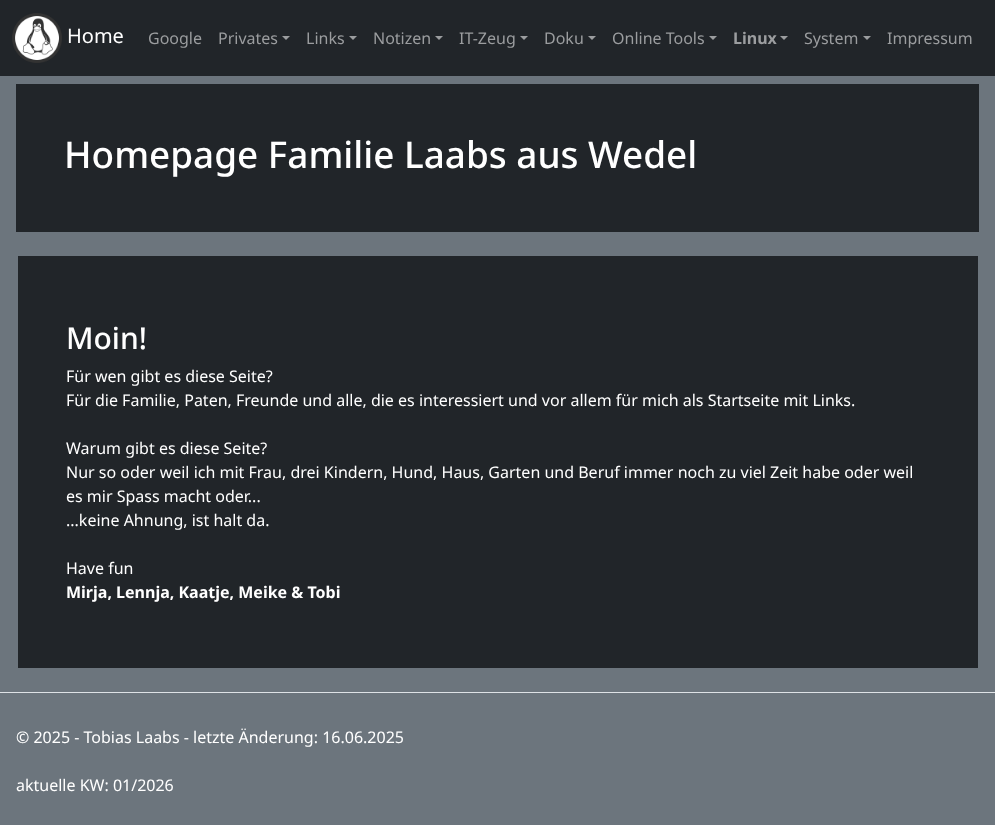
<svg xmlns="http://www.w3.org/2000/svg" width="995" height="825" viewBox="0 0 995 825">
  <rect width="100%" height="100%" fill="rgb(108,117,125)"/>
  <rect x="0" y="0" width="995" height="76" fill="rgb(33,37,41)"/>
  <image x="12" y="13" width="50" height="50" href="pic1.png"/>
  <text x="67" y="43" font-family="Noto Sans" font-size="20" fill="rgb(255,255,255)">Home</text>
  <g font-family="Noto Sans" font-size="16" fill="rgb(155,157,159)">
    <text x="148" y="44">Google</text>
    <text x="218" y="44">Privates</text>
  </g>
  <path d="M282 36H290L286 40Z" fill="rgb(155,157,159)"/>
  <text x="306" y="44" font-family="Noto Sans" font-size="16" fill="rgb(155,157,159)">Links</text>
  <path d="M349 36H357L353 40Z" fill="rgb(155,157,159)"/>
  <text x="373" y="44" font-family="Noto Sans" font-size="16" fill="rgb(155,157,159)">Notizen</text>
  <path d="M435 36H443L439 40Z" fill="rgb(155,157,159)"/>
  <text x="459" y="44" font-family="Noto Sans" font-size="16" fill="rgb(155,157,159)">IT-Zeug</text>
  <path d="M520 36H528L524 40Z" fill="rgb(155,157,159)"/>
  <text x="544" y="44" font-family="Noto Sans" font-size="16" fill="rgb(155,157,159)">Doku</text>
  <path d="M588 36H596L592 40Z" fill="rgb(155,157,159)"/>
  <text x="612" y="44" font-family="Noto Sans" font-size="16" fill="rgb(155,157,159)">Online Tools</text>
  <path d="M709 36H717L713 40Z" fill="rgb(155,157,159)"/>
  <text x="733" y="44" font-family="Noto Sans" font-size="16" font-weight="bold" fill="rgb(155,157,159)">Linux</text>
  <path d="M780 36H788L784 40Z" fill="rgb(155,157,159)"/>
  <text x="804" y="44" font-family="Noto Sans" font-size="16" fill="rgb(155,157,159)">System</text>
  <path d="M863 36H871L867 40Z" fill="rgb(155,157,159)"/>
  <text x="887" y="44" font-family="Noto Sans" font-size="16" fill="rgb(155,157,159)">Impressum</text>
  <rect x="16" y="84" width="963" height="148" fill="rgb(33,37,41)"/>
  <text x="64" y="168" font-family="Noto Sans" font-size="36.9" font-weight="500" fill="rgb(255,255,255)">Homepage Familie Laabs aus Wedel</text>
  <rect x="18" y="256" width="960" height="412" fill="rgb(33,37,41)"/>
  <text x="66" y="349" font-family="Noto Sans" font-size="30" font-weight="500" fill="rgb(255,255,255)">Moin!</text>
  <g font-family="Noto Sans" font-size="16" fill="rgb(255,255,255)">
    <text>
      <tspan x="66" y="382">Für wen gibt es diese Seite?</tspan>
      <tspan x="66" y="406">Für die Familie, Paten, Freunde und alle, die es interessiert und vor allem für mich als Startseite mit Links.</tspan>
    </text>
    <text>
      <tspan x="66" y="454">Warum gibt es diese Seite?</tspan>
      <tspan x="66" y="478">Nur so oder weil ich mit Frau, drei Kindern, Hund, Haus, Garten und Beruf immer noch zu viel Zeit habe oder weil</tspan>
      <tspan x="66" y="502">es mir Spass macht oder...</tspan>
      <tspan x="66" y="526">...keine Ahnung, ist halt da.</tspan>
    </text>
    <text x="66" y="574">Have fun</text>
  </g>
  <text x="66" y="598" font-family="Noto Sans" font-size="16" font-weight="bold" fill="rgb(255,255,255)">Mirja, Lennja, Kaatje, Meike &amp; Tobi</text>
  <rect x="0" y="692" width="995" height="1" fill="rgb(222,226,230)"/>
  <g font-family="Noto Sans" font-size="16" fill="rgb(255,255,255)">
    <text x="16" y="743">© 2025 - Tobias Laabs - letzte Änderung: 16.06.2025</text>
    <text x="16" y="791">aktuelle KW: 01/2026</text>
  </g>
</svg>
